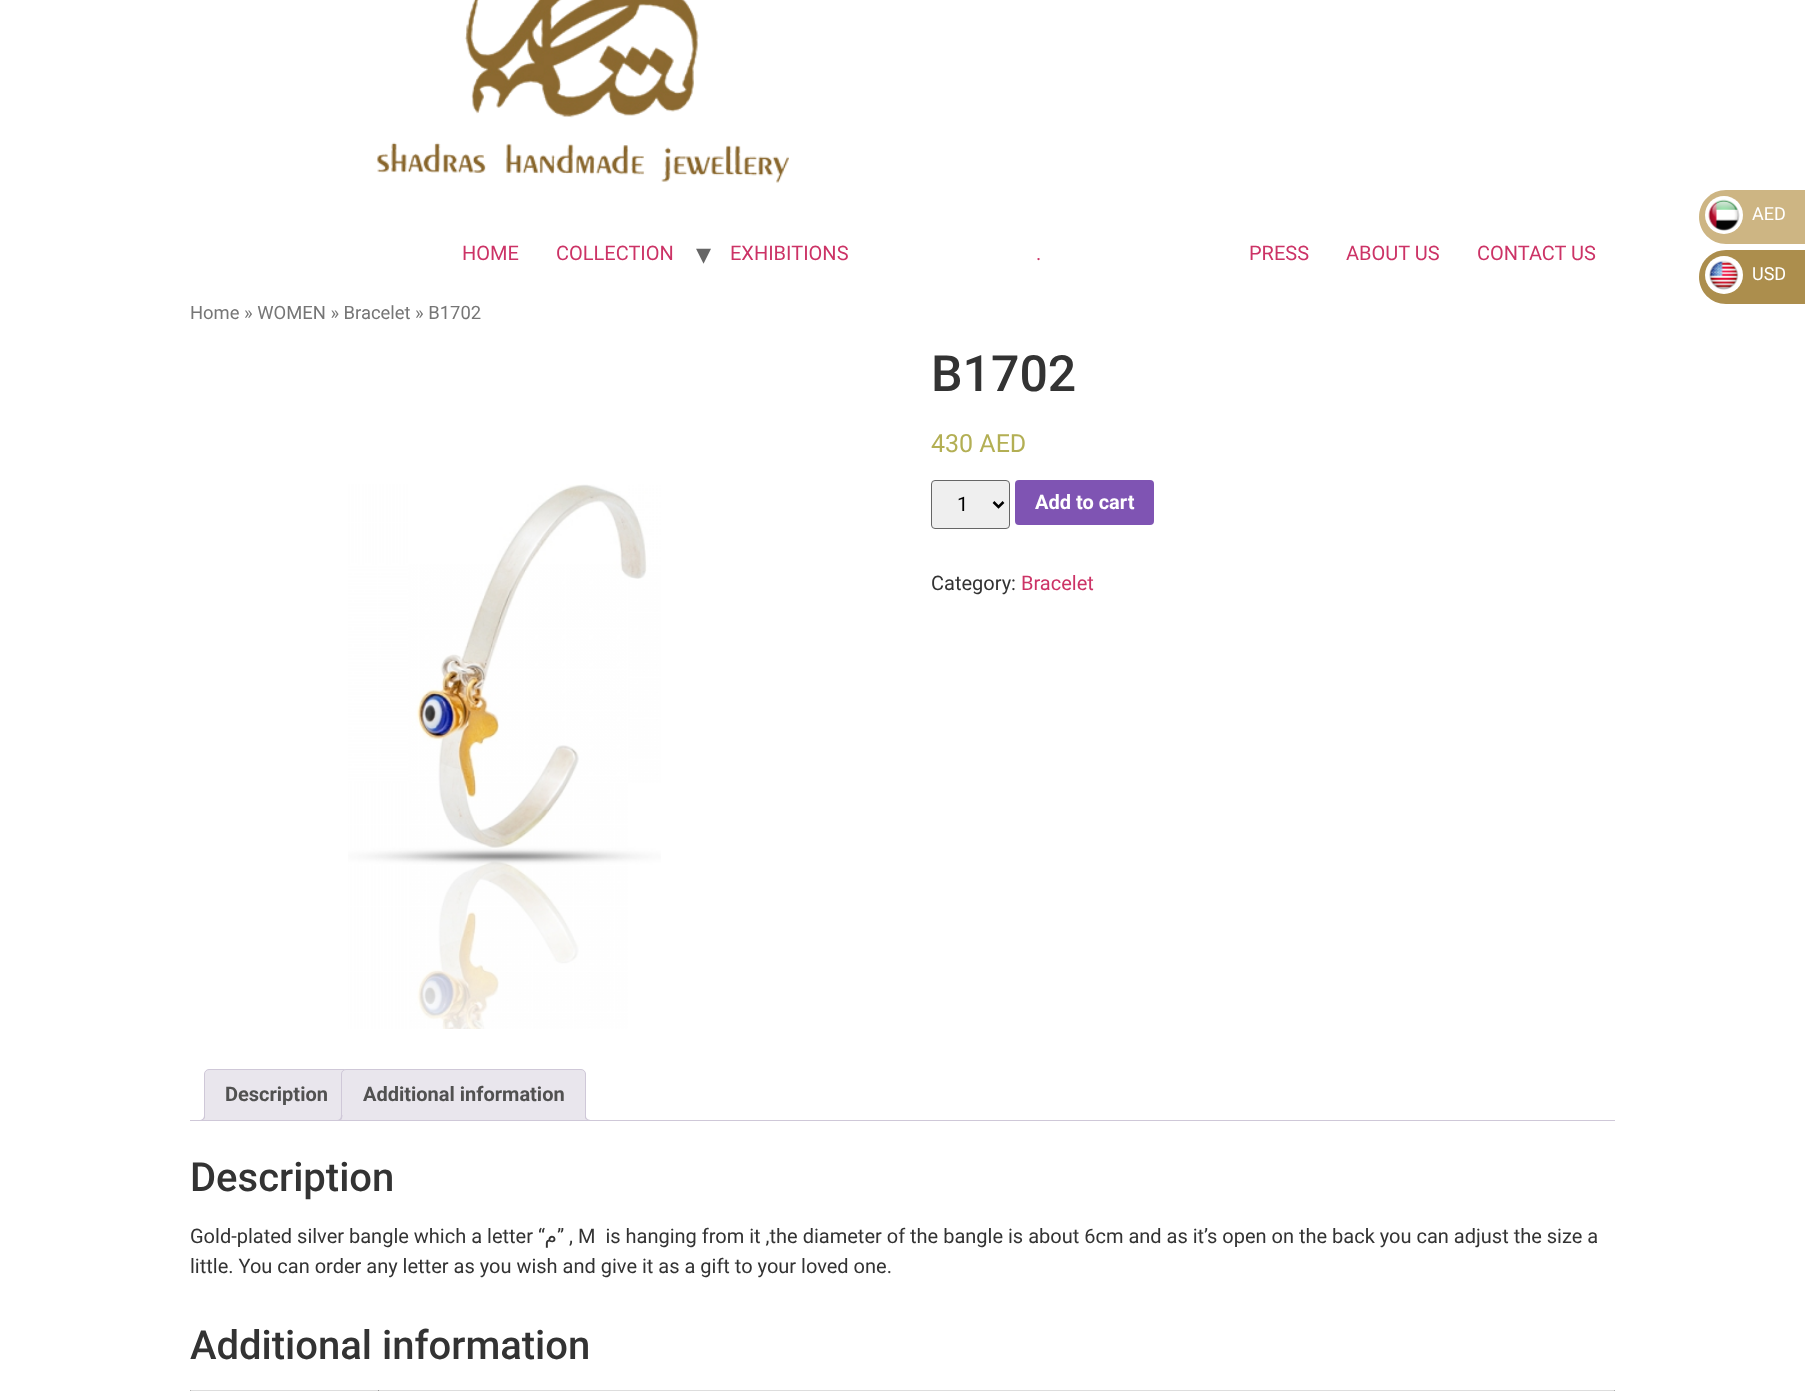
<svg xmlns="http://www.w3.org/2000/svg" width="1805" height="1391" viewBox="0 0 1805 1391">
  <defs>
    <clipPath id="clip1"><rect x="190" y="1069" width="1425" height="52"/></clipPath>
  </defs>
  <rect width="100%" height="100%" fill="rgb(255,255,255)"/>
  <image x="376" y="0" width="413" height="183" href="pic1.png"/>
  <g font-family="Roboto" font-size="20" fill="rgb(204,51,102)">
    <text x="462" y="260">HOME</text>
    <text x="556" y="260">COLLECTION</text>
  </g>
  <text x="696" y="264" font-family="DejaVu Sans" font-size="30" fill="rgb(102,102,102)">▾</text>
  <g font-family="Roboto" font-size="20" fill="rgb(204,51,102)">
    <text x="730" y="260">EXHIBITIONS</text>
    <text x="1036" y="260">.</text>
    <text x="1249" y="260">PRESS</text>
    <text x="1346" y="260">ABOUT US</text>
    <text x="1477" y="260">CONTACT US</text>
  </g>
  <path d="M1726 190H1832V244H1726C1711 244 1699 232 1699 217C1699 202 1711 190 1726 190Z" fill="rgb(205,181,131)"/>
  <circle cx="1724" cy="215" r="19" fill="rgb(255,255,255)"/>
  <image x="1708" y="199" width="32" height="32" href="pic2.png"/>
  <text x="1752" y="220" font-family="Roboto" font-size="18" fill="rgb(255,255,255)">AED</text>
  <path d="M1726 250H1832V304H1726C1711 304 1699 292 1699 277C1699 262 1711 250 1726 250Z" fill="rgb(172,142,77)"/>
  <circle cx="1724" cy="275" r="19" fill="rgb(255,255,255)"/>
  <image x="1709" y="260" width="30" height="30" href="pic3.png"/>
  <text x="1752" y="280" font-family="Roboto" font-size="18" fill="rgb(255,255,255)">USD</text>
  <text x="190" y="319" font-family="Roboto" font-size="18.4" fill="rgb(118,118,118)">Home » WOMEN » Bracelet » B1702</text>
  <image x="348" y="484" width="313" height="545" href="pic4.png"/>
  <text x="931" y="391" font-family="Roboto" font-size="50" font-weight="500" fill="rgb(51,51,51)">B1702</text>
  <text x="931" y="452" font-family="Roboto" font-size="25" fill="rgb(179,175,84)">430 AED</text>
  <rect x="931.5" y="480.5" width="78" height="48" rx="3.5" fill="rgb(239,239,239)" stroke="rgb(102,102,102)"/>
  <path d="M993.5 502L998.5 507L1003.5 502" fill="none" stroke="rgb(0,0,0)" stroke-width="2.5"/>
  <text x="957" y="511" font-family="Roboto" font-size="20" fill="rgb(0,0,0)">1</text>
  <rect x="1015" y="480" width="139" height="45" rx="4" fill="rgb(127,84,179)"/>
  <text x="1035" y="509" font-family="Roboto" font-size="20" font-weight="bold" fill="rgb(255,255,255)">Add to cart</text>
  <text x="931" y="590" font-family="Roboto" font-size="20" fill="rgb(51,51,51)">Category:</text>
  <text x="1021" y="590" font-family="Roboto" font-size="20" fill="rgb(204,51,102)">Bracelet</text>
  <path d="M209 1069.5H344C346.5 1069.5 348.5 1071.5 348.5 1074V1120.5H204.5V1074C204.5 1071.5 206.5 1069.5 209 1069.5Z" fill="rgb(233,230,237)" stroke="rgb(207,200,216)"/>
  <text x="225" y="1101" font-family="Roboto" font-size="20" font-weight="bold" fill="rgb(81,81,81)">Description</text>
  <g clip-path="url(#clip1)">
    <path d="M201 1121V1124C205.5 1124 208 1123 208 1118H204.5C204 1119.5 202.5 1121 201 1121Z" fill="rgb(233,230,237)"/>
  </g>
  <path d="M199 1115H205C205 1119.5 203 1121 199 1121ZM199 1115H204C204 1118.5 202.5 1120 199 1120Z" fill="rgb(207,200,216)" fill-rule="evenodd"/>
  <path d="M346 1069.5H581C583.5 1069.5 585.5 1071.5 585.5 1074V1120.5H341.5V1074C341.5 1071.5 343.5 1069.5 346 1069.5Z" fill="rgb(233,230,237)" stroke="rgb(207,200,216)"/>
  <text x="363" y="1101" font-family="Roboto" font-size="20" font-weight="bold" fill="rgb(81,81,81)">Additional information</text>
  <g clip-path="url(#clip1)">
    <path d="M339 1121V1124C343 1124 345 1122 345 1118H342C341.5 1119.5 340.5 1120.5 339 1121Z" fill="rgb(233,230,237)"/>
  </g>
  <path d="M336 1115H342.5C342.5 1119.5 340.5 1121 336 1121ZM336 1115H341C341 1118.5 340 1120 336 1120Z" fill="rgb(207,200,216)" fill-rule="evenodd"/>
  <g clip-path="url(#clip1)">
    <path d="M583 1118C583 1122 585 1124 589 1124V1121C587.5 1121 586 1119.5 585.5 1118Z" fill="rgb(233,230,237)"/>
  </g>
  <path d="M585 1115H591V1121C588 1121 585 1120 585 1116ZM586 1115H591V1120C589 1120 586 1119 586 1116Z" fill="rgb(207,200,216)" fill-rule="evenodd"/>
  <rect x="190" y="1120" width="1425" height="1" fill="rgb(207,200,216)"/>
  <text x="190" y="1191" font-family="Roboto" font-size="40" font-weight="500" fill="rgb(51,51,51)">Description</text>
  <text x="190" y="1243" font-family="Roboto" font-size="20" fill="rgb(51,51,51)">Gold-plated silver bangle which a letter “</text>
  <text x="557" y="1243" font-family="DejaVu Sans" font-size="20" direction="rtl" fill="rgb(51,51,51)">م</text>
  <g font-family="Roboto" font-size="20" fill="rgb(51,51,51)">
    <text x="557" y="1243" xml:space="preserve">” , M  is hanging from it ,the diameter of the bangle is about 6cm and as it’s open on the back you can adjust the size a</text>
    <text x="190" y="1273">little. You can order any letter as you wish and give it as a gift to your loved one.</text>
  </g>
  <text x="190" y="1359" font-family="Roboto" font-size="40" font-weight="500" fill="rgb(51,51,51)">Additional information</text>
  <rect x="191" y="1390" width="1424" height="1" fill="rgb(221,221,221)"/>
  <rect x="378" y="1390" width="1" height="1" fill="rgb(152,152,152)"/>
  <rect x="190" y="1390" width="1" height="1" fill="rgb(179,179,179)"/>
  <rect x="1614" y="1390" width="1" height="1" fill="rgb(175,175,175)"/>
</svg>
